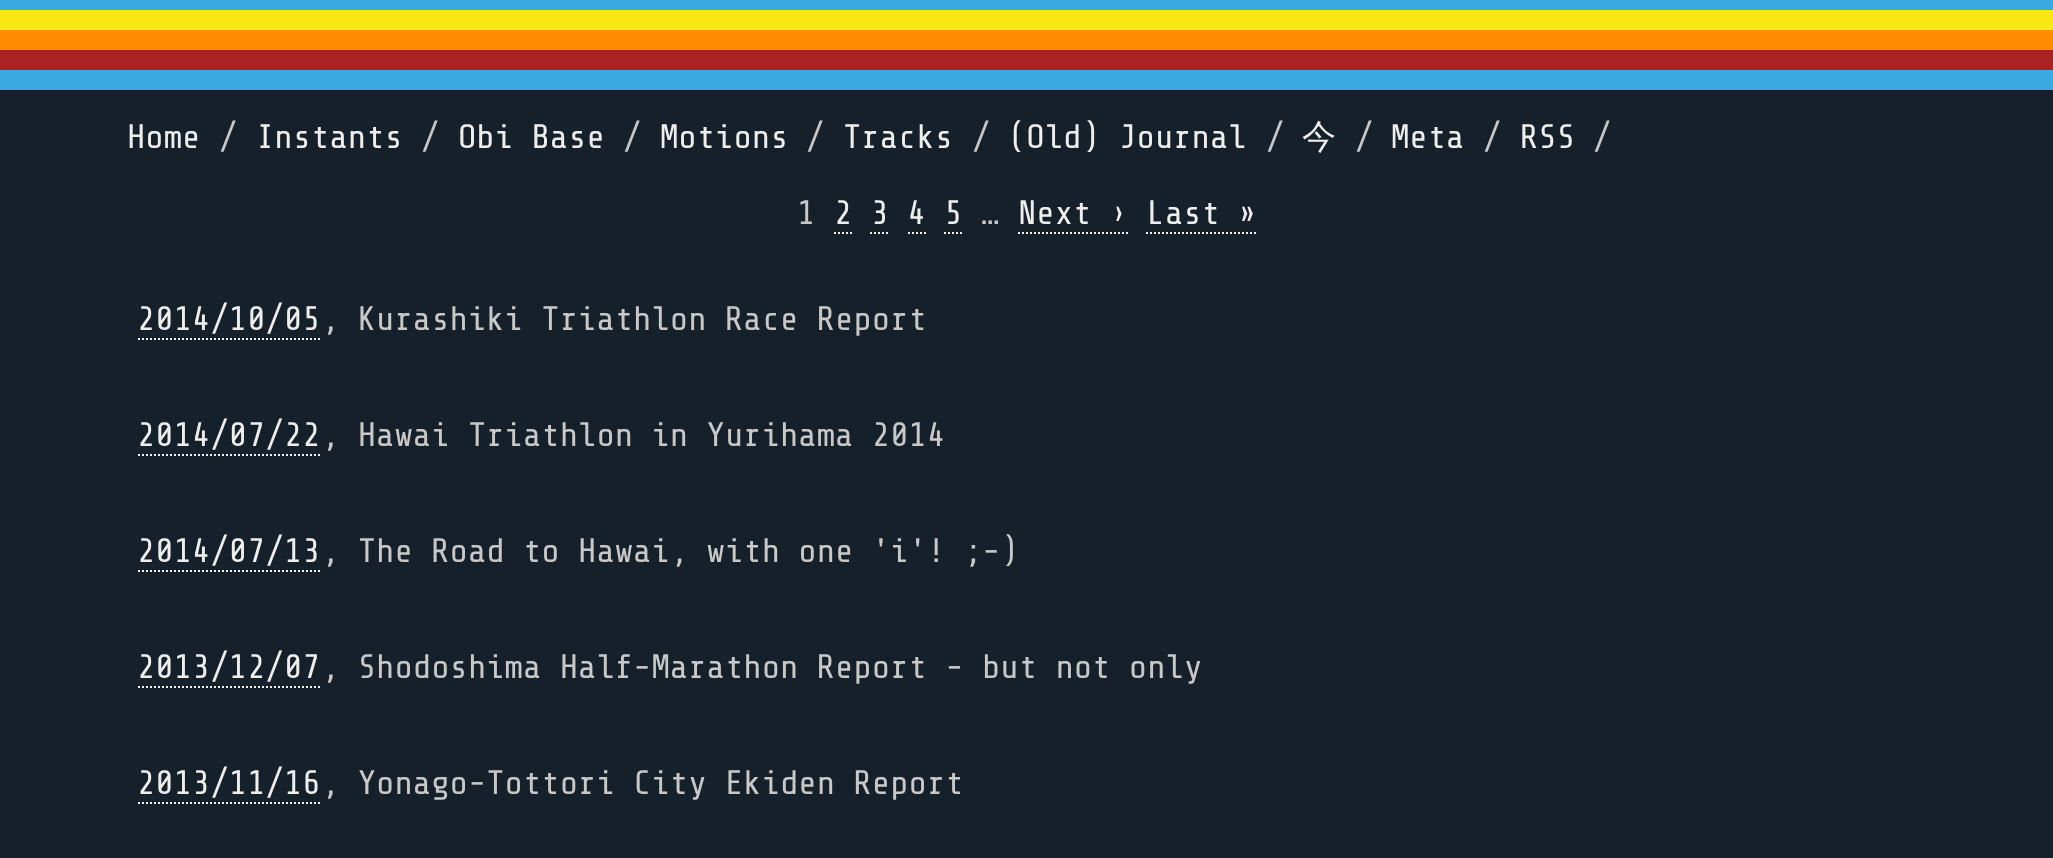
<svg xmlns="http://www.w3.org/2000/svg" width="2053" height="858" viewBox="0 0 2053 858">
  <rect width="100%" height="100%" fill="rgb(21,32,43)"/>
  <rect x="0" y="0" width="2053" height="10" fill="rgb(58,169,224)"/>
  <rect x="0" y="10" width="2053" height="20" fill="rgb(247,231,18)"/>
  <rect x="0" y="30" width="2053" height="20" fill="rgb(255,140,0)"/>
  <rect x="0" y="50" width="2053" height="20" fill="rgb(170,35,35)"/>
  <rect x="0" y="70" width="2053" height="20" fill="rgb(58,169,224)"/>
  <text x="127" y="148" font-family="Share Tech Mono" font-size="34" fill="rgb(238,238,238)">Home</text>
  <text x="219" y="148" font-family="Share Tech Mono" font-size="34" fill="rgb(200,200,200)">/</text>
  <text x="256" y="148" font-family="Share Tech Mono" font-size="34" fill="rgb(238,238,238)">Instants</text>
  <text x="421" y="148" font-family="Share Tech Mono" font-size="34" fill="rgb(200,200,200)">/</text>
  <text x="458" y="148" font-family="Share Tech Mono" font-size="34" fill="rgb(238,238,238)">Obi Base</text>
  <text x="623" y="148" font-family="Share Tech Mono" font-size="34" fill="rgb(200,200,200)">/</text>
  <text x="660" y="148" font-family="Share Tech Mono" font-size="34" fill="rgb(238,238,238)">Motions</text>
  <text x="806" y="148" font-family="Share Tech Mono" font-size="34" fill="rgb(200,200,200)">/</text>
  <text x="843" y="148" font-family="Share Tech Mono" font-size="34" fill="rgb(238,238,238)">Tracks</text>
  <text x="972" y="148" font-family="Share Tech Mono" font-size="34" fill="rgb(200,200,200)">/</text>
  <text x="1008" y="148" font-family="Share Tech Mono" font-size="34" fill="rgb(238,238,238)">(Old) Journal</text>
  <text x="1266" y="148" font-family="Share Tech Mono" font-size="34" fill="rgb(200,200,200)">/</text>
  <text x="1302" y="148" font-family="WenQuanYi Zen Hei" font-size="34" font-weight="500" fill="rgb(238,238,238)">今</text>
  <text x="1355" y="148" font-family="Share Tech Mono" font-size="34" fill="rgb(200,200,200)">/</text>
  <text x="1391" y="148" font-family="Share Tech Mono" font-size="34" fill="rgb(238,238,238)">Meta</text>
  <text x="1483" y="148" font-family="Share Tech Mono" font-size="34" fill="rgb(200,200,200)">/</text>
  <text x="1520" y="148" font-family="Share Tech Mono" font-size="34" fill="rgb(238,238,238)">RSS</text>
  <g font-family="Share Tech Mono" font-size="34" fill="rgb(200,200,200)">
    <text x="1593" y="148">/</text>
    <text x="797" y="224">1</text>
  </g>
  <text x="834" y="224" font-family="Share Tech Mono" font-size="34" fill="rgb(238,238,238)">2 3 4 5</text>
  <path d="M834 233H852" fill="none" stroke="rgb(238,238,238)" stroke-width="2" stroke-dasharray="2 2"/>
  <text x="981" y="224" font-family="Share Tech Mono" font-size="34" fill="rgb(200,200,200)">…</text>
  <text x="1018" y="224" font-family="Share Tech Mono" font-size="34" fill="rgb(238,238,238)">Next › Last »</text>
  <path d="M1018 233H1128" fill="none" stroke="rgb(238,238,238)" stroke-width="2" stroke-dasharray="2 2"/>
  <path d="M870 233H890M908 233H926" fill="none" stroke="rgb(238,238,238)" stroke-width="2" stroke-dasharray="2 2"/>
  <path d="M944 233H962" fill="none" stroke="rgb(238,238,238)" stroke-width="2" stroke-dasharray="2 2"/>
  <path d="M1146 233H1256" fill="none" stroke="rgb(238,238,238)" stroke-width="2" stroke-dasharray="2 2"/>
  <text x="137" y="330" font-family="Share Tech Mono" font-size="34" fill="rgb(238,238,238)">2014/10/05</text>
  <path d="M138 339H320" fill="none" stroke="rgb(238,238,238)" stroke-width="2" stroke-dasharray="2 2"/>
  <text x="321" y="330" font-family="Share Tech Mono" font-size="34" fill="rgb(200,200,200)">, Kurashiki Triathlon Race Report</text>
  <text x="137" y="446" font-family="Share Tech Mono" font-size="34" fill="rgb(238,238,238)">2014/07/22</text>
  <path d="M138 455H320" fill="none" stroke="rgb(238,238,238)" stroke-width="2" stroke-dasharray="2 2"/>
  <text x="321" y="446" font-family="Share Tech Mono" font-size="34" fill="rgb(200,200,200)">, Hawai Triathlon in Yurihama 2014</text>
  <text x="137" y="562" font-family="Share Tech Mono" font-size="34" fill="rgb(238,238,238)">2014/07/13</text>
  <path d="M138 571H320" fill="none" stroke="rgb(238,238,238)" stroke-width="2" stroke-dasharray="2 2"/>
  <text x="321" y="562" font-family="Share Tech Mono" font-size="34" fill="rgb(200,200,200)">, The Road to Hawai, with one 'i'! ;-)</text>
  <text x="137" y="678" font-family="Share Tech Mono" font-size="34" fill="rgb(238,238,238)">2013/12/07</text>
  <path d="M138 687H320" fill="none" stroke="rgb(238,238,238)" stroke-width="2" stroke-dasharray="2 2"/>
  <text x="321" y="678" font-family="Share Tech Mono" font-size="34" fill="rgb(200,200,200)">, Shodoshima Half-Marathon Report - but not only</text>
  <text x="137" y="794" font-family="Share Tech Mono" font-size="34" fill="rgb(238,238,238)">2013/11/16</text>
  <path d="M138 803H320" fill="none" stroke="rgb(238,238,238)" stroke-width="2" stroke-dasharray="2 2"/>
  <text x="321" y="794" font-family="Share Tech Mono" font-size="34" fill="rgb(200,200,200)">, Yonago-Tottori City Ekiden Report</text>
</svg>
